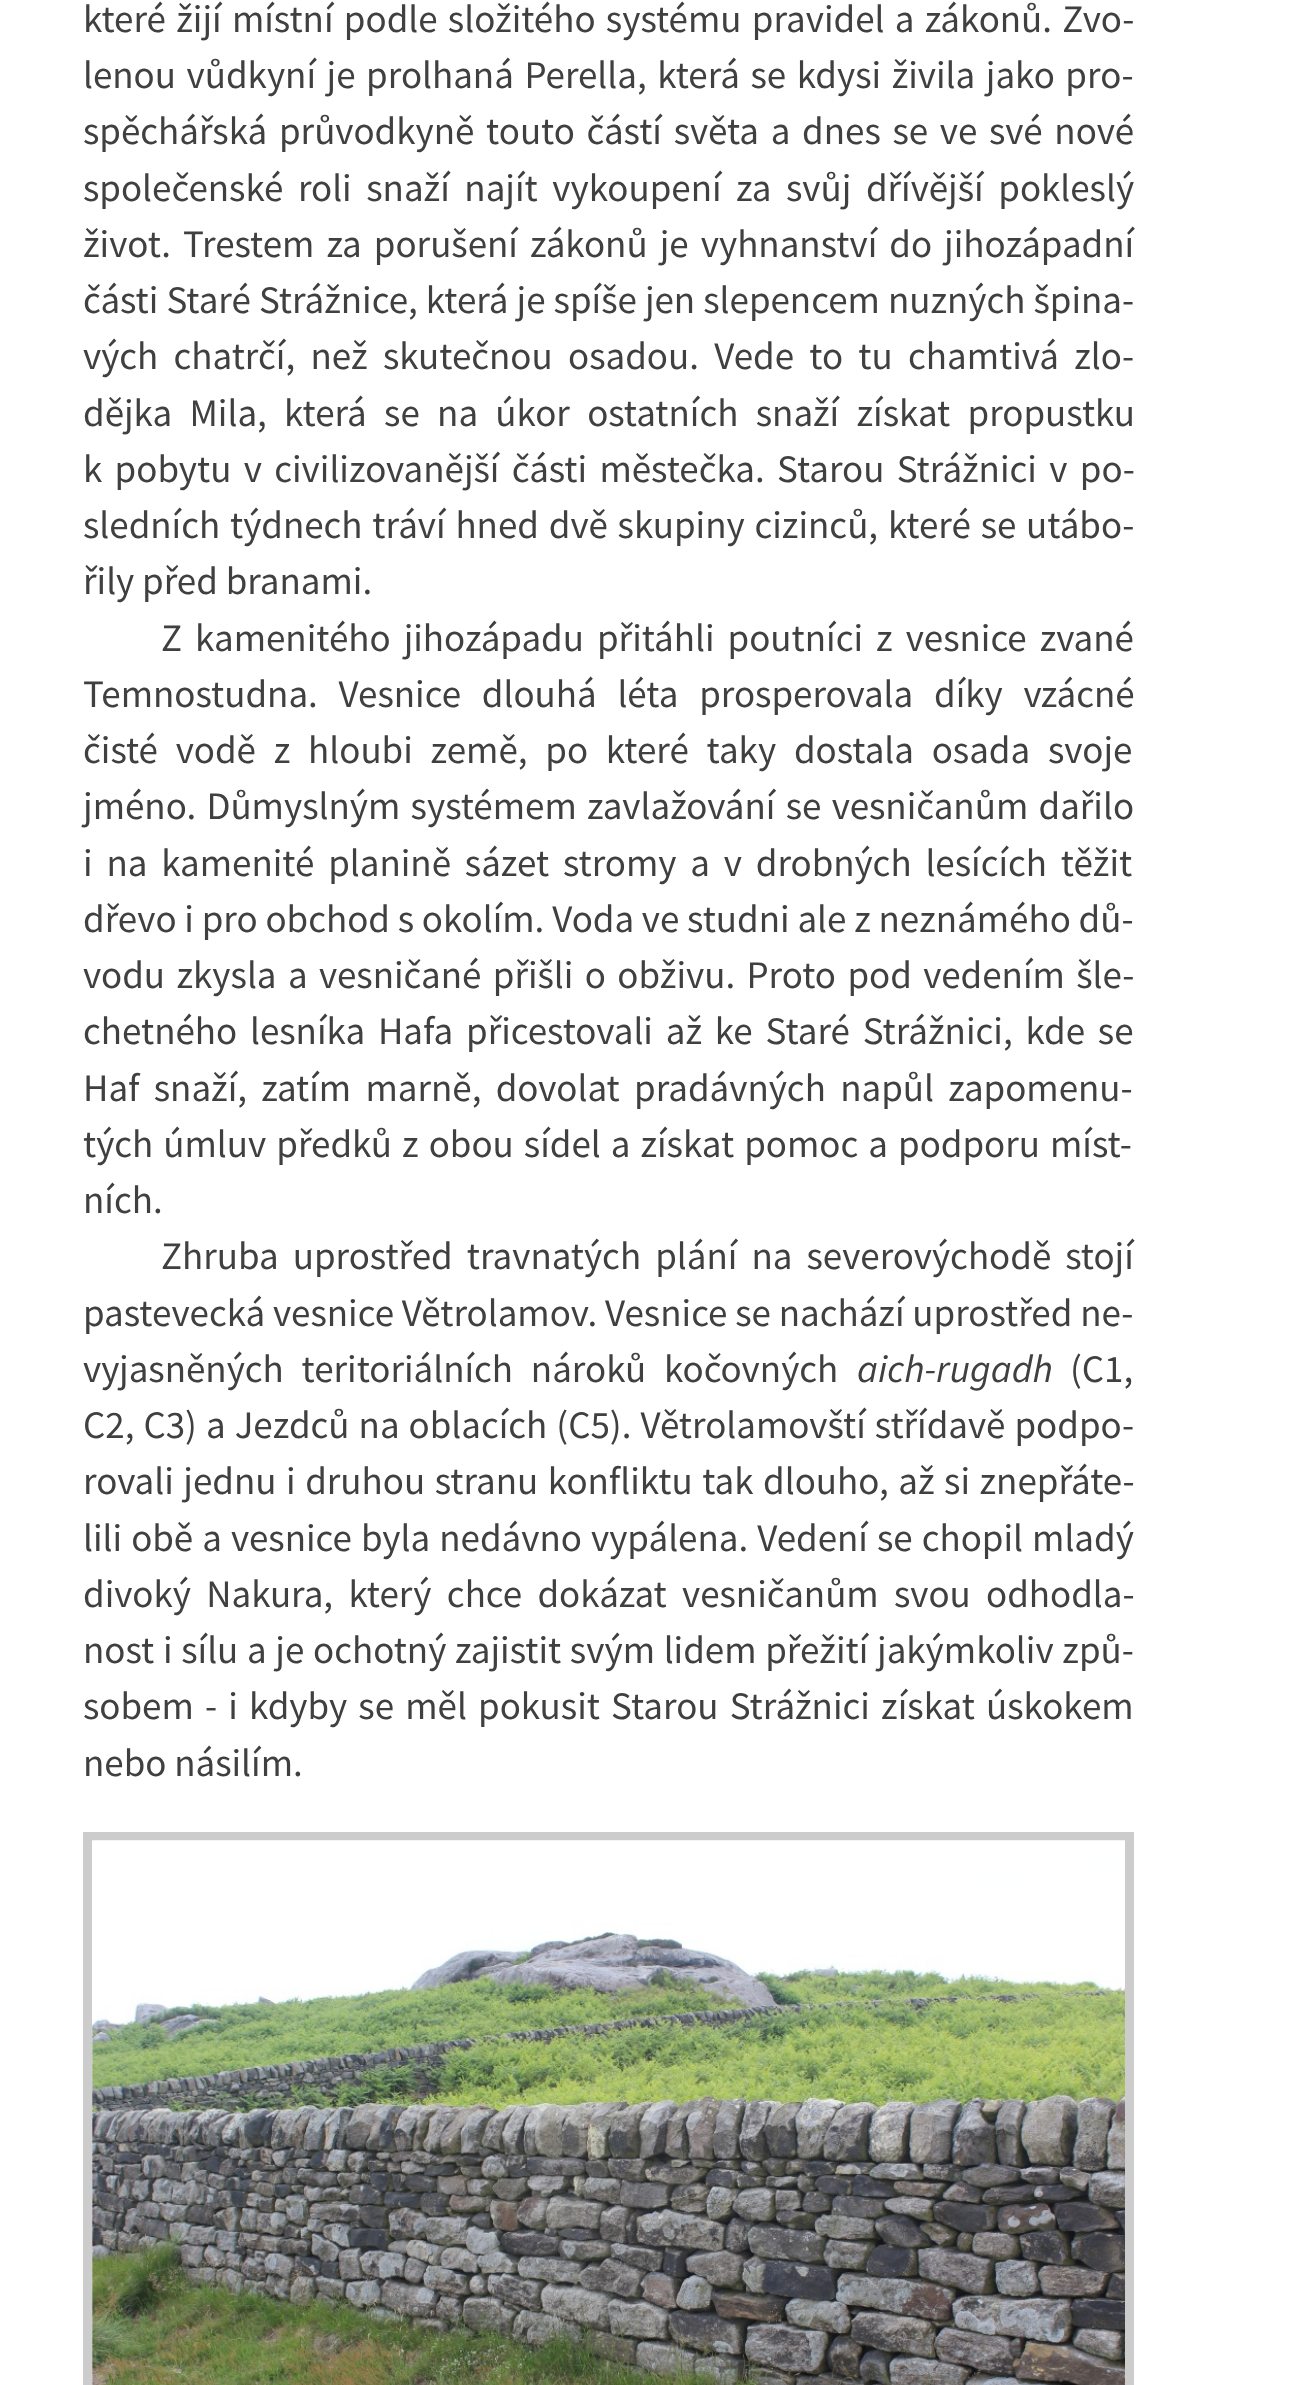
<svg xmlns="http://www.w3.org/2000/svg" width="1306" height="2385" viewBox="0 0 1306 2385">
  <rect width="100%" height="100%" fill="rgb(255,255,255)"/>
  <g font-family="Source Sans Pro" font-size="39" fill="rgb(64,64,64)">
    <text>
      <tspan x="83" y="32" word-spacing="2.5">které žijí místní podle složitého systému pravidel a zákonů. Zvo-</tspan>
      <tspan x="83" y="88" word-spacing="2.75">lenou vůdkyní je prolhaná Perella, která se kdysi živila jako pro-</tspan>
      <tspan x="83" y="144" word-spacing="3.9">spěchářská průvodkyně touto částí světa a dnes se ve své nové</tspan>
      <tspan x="83" y="201" word-spacing="6.75">společenské roli snaží najít vykoupení za svůj dřívější pokleslý</tspan>
      <tspan x="83" y="257" word-spacing="4.25">život. Trestem za porušení zákonů je vyhnanství do jihozápadní</tspan>
      <tspan x="83" y="313" word-spacing="0.25">části Staré Strážnice, která je spíše jen slepencem nuzných špina-</tspan>
      <tspan x="83" y="369" word-spacing="7.5">vých chatrčí, než skutečnou osadou. Vede to tu chamtivá zlo-</tspan>
      <tspan x="83" y="426" word-spacing="9.5">dějka Mila, která se na úkor ostatních snaží získat propustku</tspan>
      <tspan x="83" y="482" word-spacing="4.5">k pobytu v civilizovanější části městečka. Starou Strážnici v po-</tspan>
      <tspan x="83" y="538" word-spacing="2">sledních týdnech tráví hned dvě skupiny cizinců, které se utábo-</tspan>
      <tspan x="83" y="594">řily před branami.</tspan>
    </text>
    <text x="161" y="651" word-spacing="5.25">Z kamenitého jihozápadu přitáhli poutníci z vesnice zvané</text>
    <text>
      <tspan x="83" y="707" word-spacing="13">Temnostudna. Vesnice dlouhá léta prosperovala díky vzácné</tspan>
      <tspan x="83" y="763" word-spacing="10">čisté vodě z hloubi země, po které taky dostala osada svoje</tspan>
      <tspan x="83" y="819" word-spacing="2.5">jméno. Důmyslným systémem zavlažování se vesničanům dařilo</tspan>
      <tspan x="83" y="876" word-spacing="6">i na kamenité planině sázet stromy a v drobných lesících těžit</tspan>
      <tspan x="83" y="932">dřevo i pro obchod s okolím. Voda ve studni ale z neznámého dů-</tspan>
      <tspan x="83" y="988" word-spacing="3.6">vodu zkysla a vesničané přišli o obživu. Proto pod vedením šle-</tspan>
      <tspan x="83" y="1044" word-spacing="5">chetného lesníka Hafa přicestovali až ke Staré Strážnici, kde se</tspan>
      <tspan x="83" y="1101" word-spacing="6.5">Haf snaží, zatím marně, dovolat pradávných napůl zapomenu-</tspan>
      <tspan x="83" y="1157" word-spacing="2.25">tých úmluv předků z obou sídel a získat pomoc a podporu míst-</tspan>
      <tspan x="83" y="1213">ních.</tspan>
    </text>
    <text x="161" y="1269" word-spacing="6.25">Zhruba uprostřed travnatých plání na severovýchodě stojí</text>
    <text>
      <tspan x="83" y="1326">pastevecká vesnice Větrolamov. Vesnice se nachází uprostřed ne-</tspan>
      <tspan x="83" y="1382" word-spacing="10">vyjasněných teritoriálních nároků kočovných</tspan>
    </text>
  </g>
  <text x="857" y="1382" font-family="Source Sans Pro" font-size="39" font-style="italic" fill="rgb(64,64,64)">aich-rugadh</text>
  <g font-family="Source Sans Pro" font-size="39" fill="rgb(64,64,64)">
    <text x="1070" y="1382">(C1,</text>
    <text>
      <tspan x="83" y="1438" word-spacing="1.25">C2, C3) a Jezdců na oblacích (C5). Větrolamovští střídavě podpo-</tspan>
      <tspan x="83" y="1494" word-spacing="1.75">rovali jednu i druhou stranu konfliktu tak dlouho, až si znepřáte-</tspan>
      <tspan x="83" y="1551" word-spacing="1.25">lili obě a vesnice byla nedávno vypálena. Vedení se chopil mladý</tspan>
      <tspan x="83" y="1607" word-spacing="7.5">divoký Nakura, který chce dokázat vesničanům svou odhodla-</tspan>
      <tspan x="83" y="1663" word-spacing="0.9">nost i sílu a je ochotný zajistit svým lidem přežití jakýmkoliv způ-</tspan>
      <tspan x="83" y="1719" word-spacing="3.4">sobem - i kdyby se měl pokusit Starou Strážnici získat úskokem</tspan>
      <tspan x="83" y="1776">nebo násilím.</tspan>
    </text>
  </g>
  <rect x="87.5" y="1836.5" width="1042" height="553" fill="none" stroke="rgb(204,204,204)" stroke-width="9"/>
  <image x="92" y="1840" width="1033" height="545" href="pic1.png"/>
</svg>
